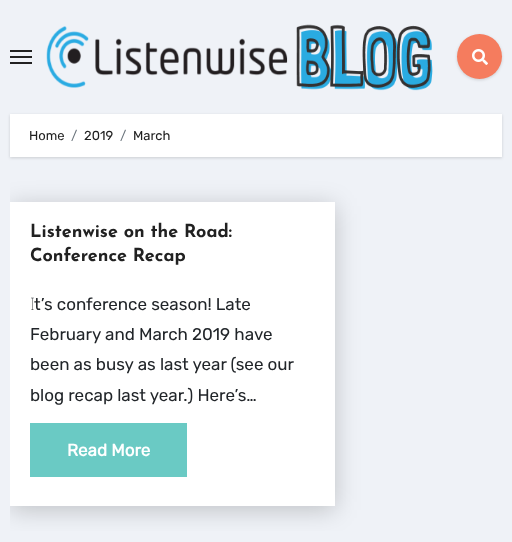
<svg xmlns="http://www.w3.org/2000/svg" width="512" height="542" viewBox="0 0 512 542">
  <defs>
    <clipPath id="clip1"><rect x="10" y="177" width="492" height="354"/></clipPath>
  </defs>
  <rect width="100%" height="100%" fill="rgb(239,242,247)"/>
  <rect x="10" y="50" width="22" height="2" fill="rgb(33,33,33)"/>
  <rect x="10" y="56" width="22" height="2" fill="rgb(33,33,33)"/>
  <rect x="10" y="62" width="22" height="2" fill="rgb(33,33,33)"/>
  <image x="46" y="24" width="387" height="67" href="pic1.png"/>
  <rect x="457" y="35" width="45" height="45" rx="22.5" fill="rgba(0,0,0,0.15)" filter="blur(1.5px)"/>
  <circle cx="479.5" cy="56.5" r="22.5" fill="rgb(245,124,94)"/>
  <image x="472" y="49" width="16" height="16" href="pic2.png"/>
  <rect x="10" y="115" width="492" height="43" fill="rgba(0,0,0,0.15)" filter="blur(1.5px)"/>
  <rect x="10" y="114" width="492" height="43" fill="rgb(255,255,255)"/>
  <text x="29" y="140" font-family="Rubik" font-size="13" font-weight="300" fill="rgb(33,33,33)">Home</text>
  <text x="71" y="140" font-family="Rubik" font-size="13" font-weight="300" fill="rgb(108,117,125)">/</text>
  <text x="84" y="140" font-family="Rubik" font-size="13" font-weight="300" fill="rgb(33,33,33)">2019</text>
  <text x="120" y="140" font-family="Rubik" font-size="13" font-weight="300" fill="rgb(108,117,125)">/</text>
  <text x="133" y="140" font-family="Rubik" font-size="13" font-weight="300" fill="rgb(33,33,33)">March</text>
  <g clip-path="url(#clip1)">
    <rect x="10" y="206" width="325" height="304" fill="rgba(0,0,0,0.2)" filter="blur(12.5px)"/>
  </g>
  <rect x="10" y="202" width="325" height="304" fill="rgb(255,255,255)"/>
  <g font-family="Josefin Sans" font-size="18" font-weight="bold" fill="rgb(33,33,33)">
    <text>
      <tspan x="30" y="237">Listenwise on the Road:</tspan>
      <tspan x="30" y="261">Conference Recap</tspan>
    </text>
  </g>
  <text x="30" y="310" font-family="Noto Sans" font-size="17" font-weight="100" fill="rgb(33,37,41)">I</text>
  <g font-family="Rubik" font-size="17" font-weight="300" fill="rgb(33,37,41)">
    <text x="34" y="310">t’s conference season! Late</text>
    <text>
      <tspan x="30" y="340">February and March 2019 have</tspan>
      <tspan x="30" y="370">been as busy as last year (see our</tspan>
      <tspan x="30" y="401">blog recap last year.) Here’s…</tspan>
    </text>
  </g>
  <rect x="30" y="423" width="157" height="54" fill="rgb(106,202,196)"/>
  <text x="67" y="456" font-family="Rubik" font-size="17" font-weight="bold" fill="rgb(255,255,255)">Read More</text>
</svg>
